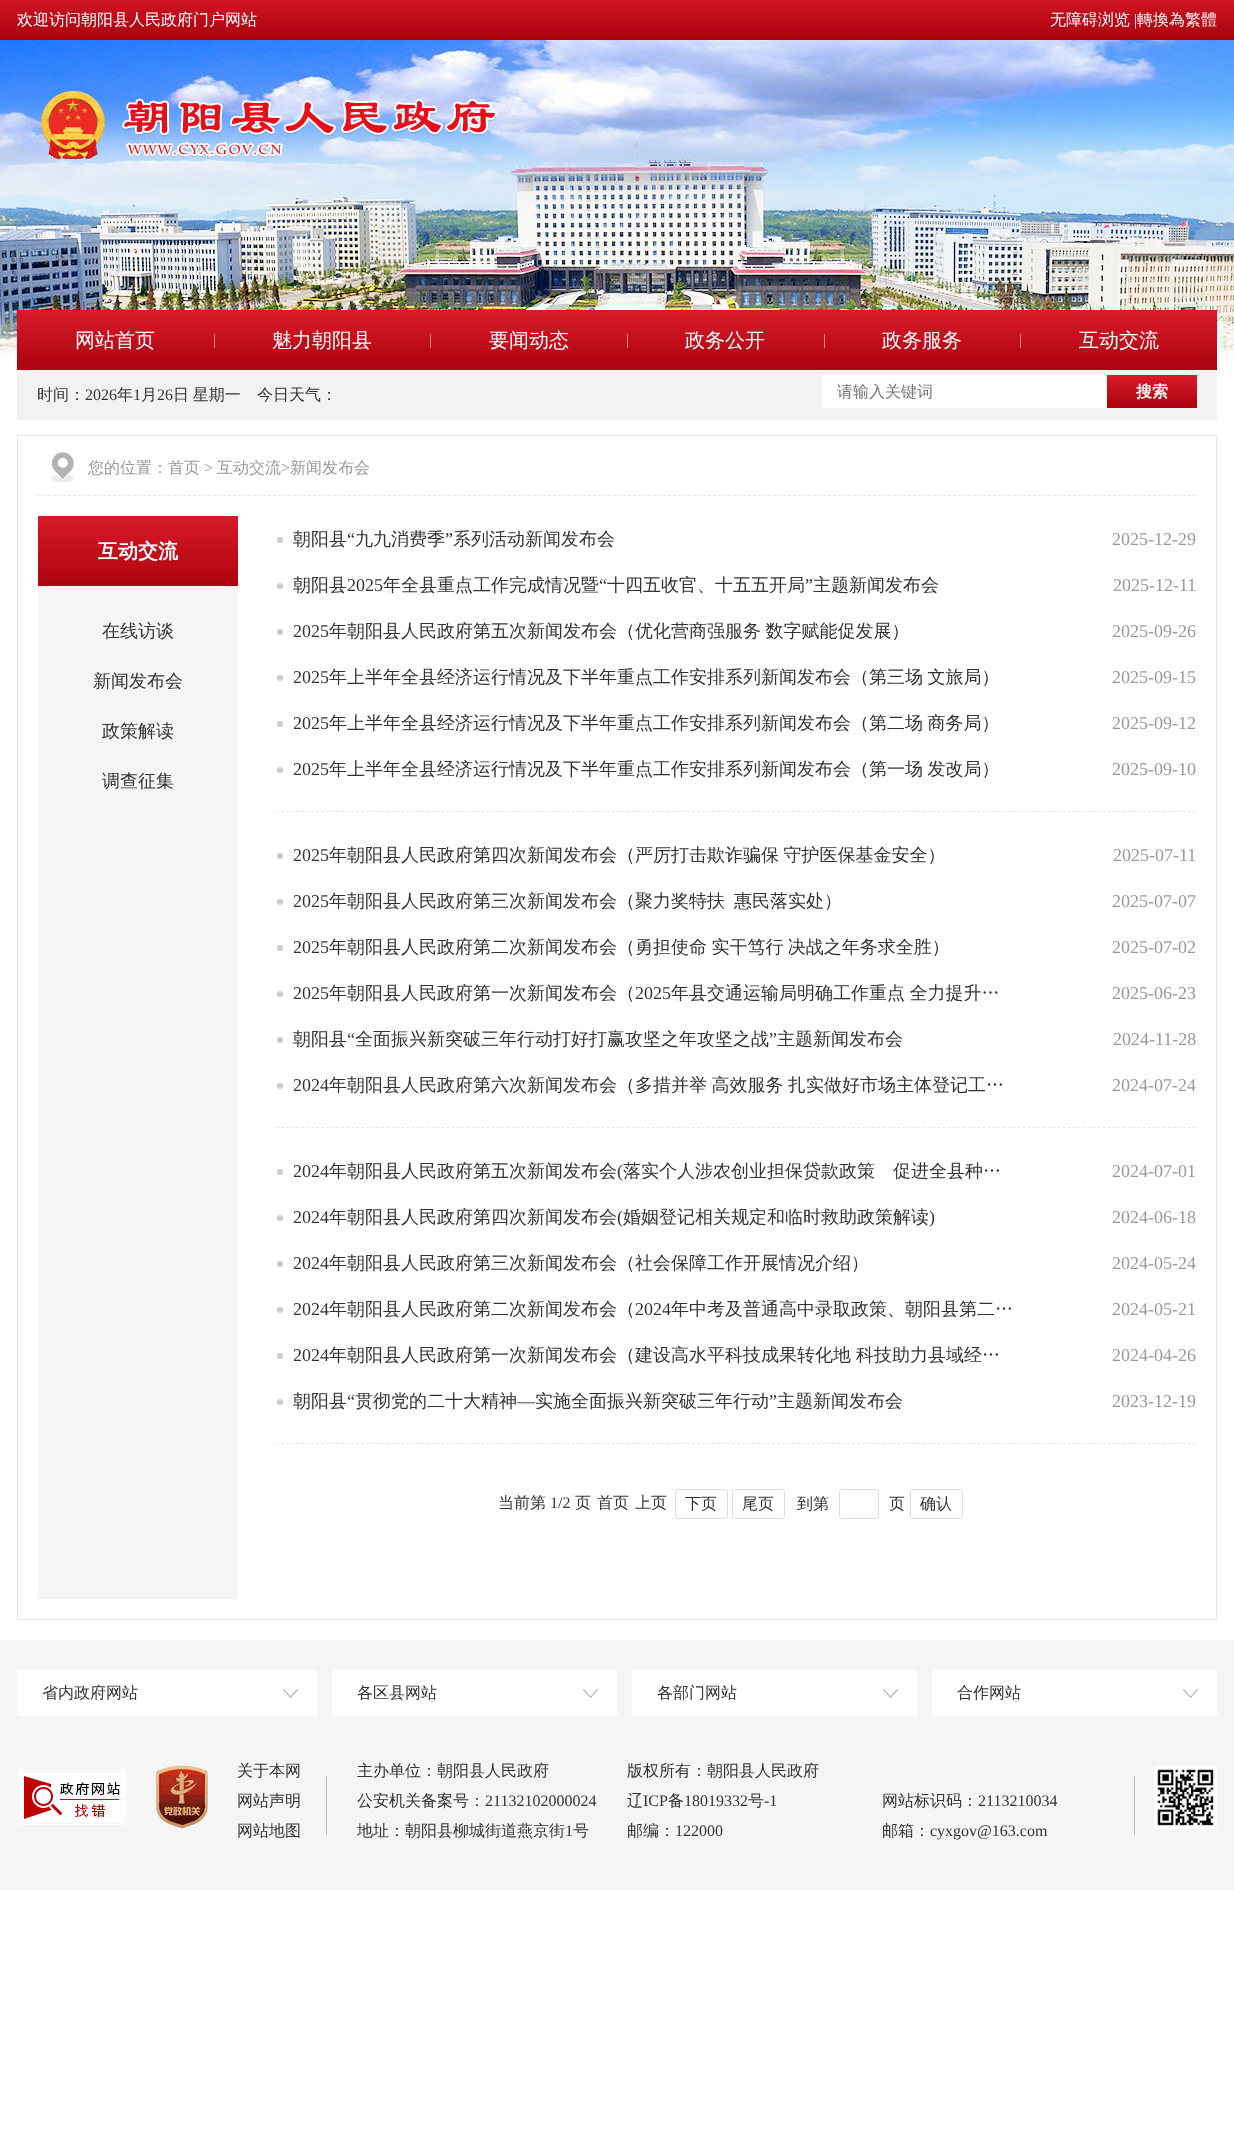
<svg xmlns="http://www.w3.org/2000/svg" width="1234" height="2150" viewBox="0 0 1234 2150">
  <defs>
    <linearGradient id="g1" gradientUnits="userSpaceOnUse" x1="138" y1="516" x2="138" y2="586"><stop offset="0" stop-color="rgb(215,26,40)"/><stop offset="1" stop-color="rgb(174,4,16)"/></linearGradient>
  </defs>
  <rect width="100%" height="100%" fill="rgb(255,255,255)"/>
  <image x="0" y="40" width="1234" height="320" href="pic1.png"/>
  <image x="0" y="0" width="1234" height="40" href="pic2.png"/>
  <g font-family="WenQuanYi Zen Hei" font-size="16" font-weight="500" fill="rgb(255,255,255)">
    <text x="17" y="25">欢迎访问朝阳县人民政府门户网站</text>
    <text x="1050" y="25">无障碍浏览</text>
  </g>
  <text x="1134" y="25" font-family="Liberation Serif" font-size="16" fill="rgb(249,246,246)">|</text>
  <text x="1137" y="25" font-family="WenQuanYi Zen Hei" font-size="16" font-weight="500" fill="rgb(249,246,246)">轉換為繁體</text>
  <image x="41" y="91" width="457" height="69" href="pic3.png"/>
  <image x="17" y="310" width="1200" height="60" href="pic4.png"/>
  <text x="75" y="347" font-family="WenQuanYi Zen Hei" font-size="20" font-weight="500" fill="rgb(255,255,255)">网站首页</text>
  <rect x="214" y="334" width="1" height="14" fill="rgb(225,135,142)"/>
  <text x="272" y="347" font-family="WenQuanYi Zen Hei" font-size="20" font-weight="500" fill="rgb(255,255,255)">魅力朝阳县</text>
  <rect x="430" y="334" width="1" height="14" fill="rgb(225,135,142)"/>
  <text x="489" y="347" font-family="WenQuanYi Zen Hei" font-size="20" font-weight="500" fill="rgb(255,255,255)">要闻动态</text>
  <rect x="627" y="334" width="1" height="14" fill="rgb(225,135,142)"/>
  <text x="685" y="347" font-family="WenQuanYi Zen Hei" font-size="20" font-weight="500" fill="rgb(255,255,255)">政务公开</text>
  <rect x="824" y="334" width="1" height="14" fill="rgb(225,135,142)"/>
  <text x="882" y="347" font-family="WenQuanYi Zen Hei" font-size="20" font-weight="500" fill="rgb(255,255,255)">政务服务</text>
  <rect x="1020" y="334" width="1" height="14" fill="rgb(225,135,142)"/>
  <text x="1079" y="347" font-family="WenQuanYi Zen Hei" font-size="20" font-weight="500" fill="rgb(255,255,255)">互动交流</text>
  <rect x="17" y="370" width="1200" height="50" fill="rgb(242,242,242)"/>
  <text x="37" y="400" font-family="WenQuanYi Zen Hei" font-size="16" font-weight="500" fill="rgb(51,51,51)">时间：</text>
  <text x="85" y="400" font-family="Liberation Serif" font-size="16" fill="rgb(51,51,51)">2026</text>
  <text x="117" y="400" font-family="WenQuanYi Zen Hei" font-size="16" font-weight="500" fill="rgb(51,51,51)">年</text>
  <text x="133" y="400" font-family="Liberation Serif" font-size="16" fill="rgb(51,51,51)">1</text>
  <text x="141" y="400" font-family="WenQuanYi Zen Hei" font-size="16" font-weight="500" fill="rgb(51,51,51)">月</text>
  <text x="157" y="400" font-family="Liberation Serif" font-size="16" fill="rgb(51,51,51)">26</text>
  <g font-family="WenQuanYi Zen Hei" font-size="16" font-weight="500" fill="rgb(51,51,51)">
    <text x="173" y="400" word-spacing="-1">日 星期一</text>
    <text x="257" y="400">今日天气：</text>
  </g>
  <rect x="822" y="375" width="285" height="33" fill="rgb(255,255,255)"/>
  <text x="837" y="397" font-family="WenQuanYi Zen Hei" font-size="16" font-weight="500" fill="rgb(117,117,117)">请输入关键词</text>
  <image x="1107" y="375" width="90" height="33" href="pic5.png"/>
  <text x="1136" y="397" font-family="WenQuanYi Zen Hei" font-size="16" font-weight="bold" fill="rgb(255,255,255)">搜索</text>
  <rect x="17.5" y="435.5" width="1199" height="1184" fill="none" stroke="rgb(229,229,229)"/>
  <path d="M38 495.5H1196" fill="none" stroke="rgb(229,229,229)" stroke-dasharray="3 2"/>
  <image x="52" y="452" width="22" height="30" href="pic6.png"/>
  <text x="88" y="473" font-family="WenQuanYi Zen Hei" font-size="16" font-weight="500" fill="rgb(153,153,153)">您的位置：首页</text>
  <text x="204" y="473" font-family="Liberation Serif" font-size="16" fill="rgb(153,153,153)">&gt;</text>
  <text x="217" y="473" font-family="WenQuanYi Zen Hei" font-size="16" font-weight="500" fill="rgb(153,153,153)">互动交流</text>
  <text x="281" y="473" font-family="Liberation Serif" font-size="16" fill="rgb(153,153,153)">&gt;</text>
  <text x="290" y="473" font-family="WenQuanYi Zen Hei" font-size="16" font-weight="500" fill="rgb(153,153,153)">新闻发布会</text>
  <rect x="38" y="586" width="200" height="1013" fill="rgb(245,245,245)"/>
  <rect x="38" y="516" width="200" height="70" fill="url(#g1)"/>
  <text x="98" y="558" font-family="WenQuanYi Zen Hei" font-size="20" font-weight="bold" fill="rgb(255,255,255)">互动交流</text>
  <g font-family="WenQuanYi Zen Hei" font-size="18" font-weight="500" fill="rgb(51,51,51)">
    <text x="102" y="637">在线访谈</text>
    <text x="93" y="687">新闻发布会</text>
    <text x="102" y="737">政策解读</text>
    <text x="102" y="787">调查征集</text>
  </g>
  <circle cx="280" cy="540" r="3" fill="rgb(204,204,204)"/>
  <text x="293" y="545" font-family="WenQuanYi Zen Hei" font-size="18" font-weight="500" fill="rgb(51,51,51)">朝阳县</text>
  <text x="347" y="545" font-family="Liberation Serif" font-size="18" fill="rgb(51,51,51)">“</text>
  <text x="355" y="545" font-family="WenQuanYi Zen Hei" font-size="18" font-weight="500" fill="rgb(51,51,51)">九九消费季</text>
  <text x="445" y="545" font-family="Liberation Serif" font-size="18" fill="rgb(51,51,51)">”</text>
  <text x="453" y="545" font-family="WenQuanYi Zen Hei" font-size="18" font-weight="500" fill="rgb(51,51,51)">系列活动新闻发布会</text>
  <text x="1112" y="545" font-family="Liberation Serif" font-size="18" fill="rgb(153,153,153)">2025-12-29</text>
  <circle cx="280" cy="586" r="3" fill="rgb(204,204,204)"/>
  <text x="293" y="591" font-family="WenQuanYi Zen Hei" font-size="18" font-weight="500" fill="rgb(51,51,51)">朝阳县</text>
  <text x="347" y="591" font-family="Liberation Serif" font-size="18" fill="rgb(51,51,51)">2025</text>
  <text x="383" y="591" font-family="WenQuanYi Zen Hei" font-size="18" font-weight="500" fill="rgb(51,51,51)">年全县重点工作完成情况暨</text>
  <text x="599" y="591" font-family="Liberation Serif" font-size="18" fill="rgb(51,51,51)">“</text>
  <text x="607" y="591" font-family="WenQuanYi Zen Hei" font-size="18" font-weight="500" fill="rgb(51,51,51)">十四五收官、十五五开局</text>
  <text x="805" y="591" font-family="Liberation Serif" font-size="18" fill="rgb(51,51,51)">”</text>
  <text x="813" y="591" font-family="WenQuanYi Zen Hei" font-size="18" font-weight="500" fill="rgb(51,51,51)">主题新闻发布会</text>
  <text x="1113" y="591" font-family="Liberation Serif" font-size="18" fill="rgb(153,153,153)">2025-12-11</text>
  <circle cx="280" cy="632" r="3" fill="rgb(204,204,204)"/>
  <text x="293" y="637" font-family="Liberation Serif" font-size="18" fill="rgb(51,51,51)">2025</text>
  <text x="329" y="637" word-spacing="-1" font-family="WenQuanYi Zen Hei" font-size="18" font-weight="500" fill="rgb(51,51,51)">年朝阳县人民政府第五次新闻发布会（优化营商强服务 数字赋能促发展）</text>
  <text x="1112" y="637" font-family="Liberation Serif" font-size="18" fill="rgb(153,153,153)">2025-09-26</text>
  <circle cx="280" cy="678" r="3" fill="rgb(204,204,204)"/>
  <text x="293" y="683" font-family="Liberation Serif" font-size="18" fill="rgb(51,51,51)">2025</text>
  <text x="329" y="683" word-spacing="-1" font-family="WenQuanYi Zen Hei" font-size="18" font-weight="500" fill="rgb(51,51,51)">年上半年全县经济运行情况及下半年重点工作安排系列新闻发布会（第三场 文旅局）</text>
  <text x="1112" y="683" font-family="Liberation Serif" font-size="18" fill="rgb(153,153,153)">2025-09-15</text>
  <circle cx="280" cy="724" r="3" fill="rgb(204,204,204)"/>
  <text x="293" y="729" font-family="Liberation Serif" font-size="18" fill="rgb(51,51,51)">2025</text>
  <text x="329" y="729" word-spacing="-1" font-family="WenQuanYi Zen Hei" font-size="18" font-weight="500" fill="rgb(51,51,51)">年上半年全县经济运行情况及下半年重点工作安排系列新闻发布会（第二场 商务局）</text>
  <text x="1112" y="729" font-family="Liberation Serif" font-size="18" fill="rgb(153,153,153)">2025-09-12</text>
  <path d="M276 811.5H1196" fill="none" stroke="rgb(229,229,229)" stroke-dasharray="3 2.01"/>
  <circle cx="280" cy="770" r="3" fill="rgb(204,204,204)"/>
  <text x="293" y="775" font-family="Liberation Serif" font-size="18" fill="rgb(51,51,51)">2025</text>
  <text x="329" y="775" word-spacing="-1" font-family="WenQuanYi Zen Hei" font-size="18" font-weight="500" fill="rgb(51,51,51)">年上半年全县经济运行情况及下半年重点工作安排系列新闻发布会（第一场 发改局）</text>
  <text x="1112" y="775" font-family="Liberation Serif" font-size="18" fill="rgb(153,153,153)">2025-09-10</text>
  <circle cx="280" cy="856" r="3" fill="rgb(204,204,204)"/>
  <text x="293" y="861" font-family="Liberation Serif" font-size="18" fill="rgb(51,51,51)">2025</text>
  <text x="329" y="861" word-spacing="-1" font-family="WenQuanYi Zen Hei" font-size="18" font-weight="500" fill="rgb(51,51,51)">年朝阳县人民政府第四次新闻发布会（严厉打击欺诈骗保 守护医保基金安全）</text>
  <text x="1113" y="861" font-family="Liberation Serif" font-size="18" fill="rgb(153,153,153)">2025-07-11</text>
  <circle cx="280" cy="902" r="3" fill="rgb(204,204,204)"/>
  <text x="293" y="907" font-family="Liberation Serif" font-size="18" fill="rgb(51,51,51)">2025</text>
  <g font-family="WenQuanYi Zen Hei" font-size="18" font-weight="500" fill="rgb(51,51,51)">
    <text x="329" y="907">年朝阳县人民政府第三次新闻发布会（聚力奖特扶</text>
    <text x="734" y="907">惠民落实处）</text>
  </g>
  <text x="1112" y="907" font-family="Liberation Serif" font-size="18" fill="rgb(153,153,153)">2025-07-07</text>
  <circle cx="280" cy="948" r="3" fill="rgb(204,204,204)"/>
  <text x="293" y="953" font-family="Liberation Serif" font-size="18" fill="rgb(51,51,51)">2025</text>
  <text x="329" y="953" word-spacing="-1" font-family="WenQuanYi Zen Hei" font-size="18" font-weight="500" fill="rgb(51,51,51)">年朝阳县人民政府第二次新闻发布会（勇担使命 实干笃行 决战之年务求全胜）</text>
  <text x="1112" y="953" font-family="Liberation Serif" font-size="18" fill="rgb(153,153,153)">2025-07-02</text>
  <circle cx="280" cy="994" r="3" fill="rgb(204,204,204)"/>
  <text x="293" y="999" font-family="Liberation Serif" font-size="18" fill="rgb(51,51,51)">2025</text>
  <text x="329" y="999" font-family="WenQuanYi Zen Hei" font-size="18" font-weight="500" fill="rgb(51,51,51)">年朝阳县人民政府第一次新闻发布会（</text>
  <text x="635" y="999" font-family="Liberation Serif" font-size="18" fill="rgb(51,51,51)">2025</text>
  <text x="671" y="999" word-spacing="-1" font-family="WenQuanYi Zen Hei" font-size="18" font-weight="500" fill="rgb(51,51,51)">年县交通运输局明确工作重点 全力提升…</text>
  <text x="1112" y="999" font-family="Liberation Serif" font-size="18" fill="rgb(153,153,153)">2025-06-23</text>
  <circle cx="280" cy="1040" r="3" fill="rgb(204,204,204)"/>
  <text x="293" y="1045" font-family="WenQuanYi Zen Hei" font-size="18" font-weight="500" fill="rgb(51,51,51)">朝阳县</text>
  <text x="347" y="1045" font-family="Liberation Serif" font-size="18" fill="rgb(51,51,51)">“</text>
  <text x="355" y="1045" font-family="WenQuanYi Zen Hei" font-size="18" font-weight="500" fill="rgb(51,51,51)">全面振兴新突破三年行动打好打赢攻坚之年攻坚之战</text>
  <text x="769" y="1045" font-family="Liberation Serif" font-size="18" fill="rgb(51,51,51)">”</text>
  <text x="777" y="1045" font-family="WenQuanYi Zen Hei" font-size="18" font-weight="500" fill="rgb(51,51,51)">主题新闻发布会</text>
  <text x="1113" y="1045" font-family="Liberation Serif" font-size="18" fill="rgb(153,153,153)">2024-11-28</text>
  <path d="M276 1127.5H1196" fill="none" stroke="rgb(229,229,229)" stroke-dasharray="3 2.01"/>
  <circle cx="280" cy="1086" r="3" fill="rgb(204,204,204)"/>
  <text x="293" y="1091" font-family="Liberation Serif" font-size="18" fill="rgb(51,51,51)">2024</text>
  <g font-family="WenQuanYi Zen Hei" font-size="18" font-weight="500" fill="rgb(51,51,51)">
    <text x="329" y="1091" word-spacing="-1">年朝阳县人民政府第六次新闻发布会（多措并举 高效服务</text>
    <text x="788" y="1091">扎实做好市场主体登记工…</text>
  </g>
  <text x="1112" y="1091" font-family="Liberation Serif" font-size="18" fill="rgb(153,153,153)">2024-07-24</text>
  <circle cx="280" cy="1172" r="3" fill="rgb(204,204,204)"/>
  <text x="293" y="1177" font-family="Liberation Serif" font-size="18" fill="rgb(51,51,51)">2024</text>
  <text x="329" y="1177" font-family="WenQuanYi Zen Hei" font-size="18" font-weight="500" fill="rgb(51,51,51)">年朝阳县人民政府第五次新闻发布会</text>
  <text x="617" y="1177" font-family="Liberation Serif" font-size="18" fill="rgb(51,51,51)">(</text>
  <text x="623" y="1177" font-family="WenQuanYi Zen Hei" font-size="18" font-weight="500" fill="rgb(51,51,51)">落实个人涉农创业担保贷款政策　促进全县种…</text>
  <text x="1112" y="1177" font-family="Liberation Serif" font-size="18" fill="rgb(153,153,153)">2024-07-01</text>
  <circle cx="280" cy="1218" r="3" fill="rgb(204,204,204)"/>
  <text x="293" y="1223" font-family="Liberation Serif" font-size="18" fill="rgb(51,51,51)">2024</text>
  <text x="329" y="1223" font-family="WenQuanYi Zen Hei" font-size="18" font-weight="500" fill="rgb(51,51,51)">年朝阳县人民政府第四次新闻发布会</text>
  <text x="617" y="1223" font-family="Liberation Serif" font-size="18" fill="rgb(51,51,51)">(</text>
  <text x="623" y="1223" font-family="WenQuanYi Zen Hei" font-size="18" font-weight="500" fill="rgb(51,51,51)">婚姻登记相关规定和临时救助政策解读</text>
  <text x="929" y="1223" font-family="Liberation Serif" font-size="18" fill="rgb(51,51,51)">)</text>
  <text x="1112" y="1223" font-family="Liberation Serif" font-size="18" fill="rgb(153,153,153)">2024-06-18</text>
  <circle cx="280" cy="1264" r="3" fill="rgb(204,204,204)"/>
  <text x="293" y="1269" font-family="Liberation Serif" font-size="18" fill="rgb(51,51,51)">2024</text>
  <text x="329" y="1269" font-family="WenQuanYi Zen Hei" font-size="18" font-weight="500" fill="rgb(51,51,51)">年朝阳县人民政府第三次新闻发布会（社会保障工作开展情况介绍）</text>
  <text x="1112" y="1269" font-family="Liberation Serif" font-size="18" fill="rgb(153,153,153)">2024-05-24</text>
  <circle cx="280" cy="1310" r="3" fill="rgb(204,204,204)"/>
  <text x="293" y="1315" font-family="Liberation Serif" font-size="18" fill="rgb(51,51,51)">2024</text>
  <text x="329" y="1315" font-family="WenQuanYi Zen Hei" font-size="18" font-weight="500" fill="rgb(51,51,51)">年朝阳县人民政府第二次新闻发布会（</text>
  <text x="635" y="1315" font-family="Liberation Serif" font-size="18" fill="rgb(51,51,51)">2024</text>
  <text x="671" y="1315" font-family="WenQuanYi Zen Hei" font-size="18" font-weight="500" fill="rgb(51,51,51)">年中考及普通高中录取政策、朝阳县第二…</text>
  <text x="1112" y="1315" font-family="Liberation Serif" font-size="18" fill="rgb(153,153,153)">2024-05-21</text>
  <circle cx="280" cy="1356" r="3" fill="rgb(204,204,204)"/>
  <text x="293" y="1361" font-family="Liberation Serif" font-size="18" fill="rgb(51,51,51)">2024</text>
  <g font-family="WenQuanYi Zen Hei" font-size="18" font-weight="500" fill="rgb(51,51,51)">
    <text x="329" y="1361">年朝阳县人民政府第一次新闻发布会（建设高水平科技成果转化地</text>
    <text x="856" y="1361">科技助力县域经…</text>
  </g>
  <text x="1112" y="1361" font-family="Liberation Serif" font-size="18" fill="rgb(153,153,153)">2024-04-26</text>
  <path d="M276 1443.5H1196" fill="none" stroke="rgb(229,229,229)" stroke-dasharray="3 2.01"/>
  <circle cx="280" cy="1402" r="3" fill="rgb(204,204,204)"/>
  <text x="293" y="1407" font-family="WenQuanYi Zen Hei" font-size="18" font-weight="500" fill="rgb(51,51,51)">朝阳县</text>
  <text x="347" y="1407" font-family="Liberation Serif" font-size="18" fill="rgb(51,51,51)">“</text>
  <text x="355" y="1407" font-family="WenQuanYi Zen Hei" font-size="18" font-weight="500" fill="rgb(51,51,51)">贯彻党的二十大精神</text>
  <text x="517" y="1407" font-family="Liberation Serif" font-size="18" fill="rgb(51,51,51)">—</text>
  <text x="535" y="1407" font-family="WenQuanYi Zen Hei" font-size="18" font-weight="500" fill="rgb(51,51,51)">实施全面振兴新突破三年行动</text>
  <text x="769" y="1407" font-family="Liberation Serif" font-size="18" fill="rgb(51,51,51)">”</text>
  <text x="777" y="1407" font-family="WenQuanYi Zen Hei" font-size="18" font-weight="500" fill="rgb(51,51,51)">主题新闻发布会</text>
  <text x="1112" y="1407" font-family="Liberation Serif" font-size="18" fill="rgb(153,153,153)">2023-12-19</text>
  <text x="498" y="1508" font-family="WenQuanYi Zen Hei" font-size="16" font-weight="500" fill="rgb(51,51,51)">当前第</text>
  <text x="550" y="1508" font-family="Liberation Serif" font-size="16" fill="rgb(51,51,51)">1/2</text>
  <g font-family="WenQuanYi Zen Hei" font-size="16" font-weight="500" fill="rgb(51,51,51)">
    <text x="575" y="1508">页</text>
    <text x="597" y="1508">首页</text>
    <text x="635" y="1508">上页</text>
  </g>
  <rect x="675.5" y="1489.5" width="52" height="29" rx="2.5" fill="none" stroke="rgb(221,221,221)"/>
  <text x="685" y="1509" font-family="WenQuanYi Zen Hei" font-size="16" font-weight="500" fill="rgb(51,51,51)">下页</text>
  <rect x="732.5" y="1489.5" width="52" height="29" rx="2.5" fill="none" stroke="rgb(221,221,221)"/>
  <g font-family="WenQuanYi Zen Hei" font-size="16" font-weight="500" fill="rgb(51,51,51)">
    <text x="742" y="1509">尾页</text>
    <text x="797" y="1509">到第</text>
  </g>
  <rect x="839.5" y="1489.5" width="39" height="29" rx="2.5" fill="none" stroke="rgb(221,221,221)"/>
  <text x="889" y="1509" font-family="WenQuanYi Zen Hei" font-size="16" font-weight="500" fill="rgb(51,51,51)">页</text>
  <rect x="910.5" y="1489.5" width="52" height="29" rx="2.5" fill="none" stroke="rgb(221,221,221)"/>
  <text x="920" y="1509" font-family="WenQuanYi Zen Hei" font-size="16" font-weight="500" fill="rgb(51,51,51)">确认</text>
  <rect x="0" y="1640" width="1234" height="250" fill="rgb(245,245,245)"/>
  <rect x="17" y="1670" width="300" height="46" fill="rgb(255,255,255)"/>
  <text x="42" y="1698" font-family="WenQuanYi Zen Hei" font-size="16" font-weight="500" fill="rgb(51,51,51)">省内政府网站</text>
  <image x="283" y="1689" width="15" height="9" href="pic7.png"/>
  <rect x="332" y="1670" width="285" height="46" fill="rgb(255,255,255)"/>
  <text x="357" y="1698" font-family="WenQuanYi Zen Hei" font-size="16" font-weight="500" fill="rgb(51,51,51)">各区县网站</text>
  <image x="583" y="1689" width="15" height="9" href="pic7.png"/>
  <rect x="632" y="1670" width="285" height="46" fill="rgb(255,255,255)"/>
  <text x="657" y="1698" font-family="WenQuanYi Zen Hei" font-size="16" font-weight="500" fill="rgb(51,51,51)">各部门网站</text>
  <image x="883" y="1689" width="15" height="9" href="pic7.png"/>
  <rect x="932" y="1670" width="285" height="46" fill="rgb(255,255,255)"/>
  <text x="957" y="1698" font-family="WenQuanYi Zen Hei" font-size="16" font-weight="500" fill="rgb(51,51,51)">合作网站</text>
  <image x="1183" y="1689" width="15" height="9" href="pic7.png"/>
  <image x="17" y="1770" width="110" height="55" href="pic8.png"/>
  <image x="156" y="1765" width="52" height="64" href="pic9.png"/>
  <g font-family="WenQuanYi Zen Hei" font-size="16" font-weight="500" fill="rgb(51,51,51)">
    <text>
      <tspan x="237" y="1776">关于本网</tspan>
      <tspan x="237" y="1806">网站声明</tspan>
    </text>
  </g>
  <rect x="326" y="1776" width="1" height="60" fill="rgb(191,191,191)"/>
  <g font-family="WenQuanYi Zen Hei" font-size="16" font-weight="500" fill="rgb(51,51,51)">
    <text x="237" y="1836">网站地图</text>
    <text>
      <tspan x="357" y="1776">主办单位：朝阳县人民政府</tspan>
      <tspan x="357" y="1806">公安机关备案号：</tspan>
    </text>
  </g>
  <text x="485" y="1806" font-family="Liberation Serif" font-size="16" fill="rgb(51,51,51)">21132102000024</text>
  <text x="357" y="1836" font-family="WenQuanYi Zen Hei" font-size="16" font-weight="500" fill="rgb(51,51,51)">地址：朝阳县柳城街道燕京街</text>
  <text x="565" y="1836" font-family="Liberation Serif" font-size="16" fill="rgb(51,51,51)">1</text>
  <g font-family="WenQuanYi Zen Hei" font-size="16" font-weight="500" fill="rgb(51,51,51)">
    <text x="573" y="1836">号</text>
    <text>
      <tspan x="627" y="1776">版权所有：朝阳县人民政府</tspan>
      <tspan x="627" y="1806">辽</tspan>
    </text>
  </g>
  <text x="643" y="1806" font-family="Liberation Serif" font-size="16" fill="rgb(51,51,51)">ICP</text>
  <text x="668" y="1806" font-family="WenQuanYi Zen Hei" font-size="16" font-weight="500" fill="rgb(51,51,51)">备</text>
  <text x="684" y="1806" font-family="Liberation Serif" font-size="16" fill="rgb(51,51,51)">18019332</text>
  <text x="748" y="1806" font-family="WenQuanYi Zen Hei" font-size="16" font-weight="500" fill="rgb(51,51,51)">号</text>
  <text x="764" y="1806" font-family="Liberation Serif" font-size="16" fill="rgb(51,51,51)">-1</text>
  <text x="627" y="1836" font-family="WenQuanYi Zen Hei" font-size="16" font-weight="500" fill="rgb(51,51,51)">邮编：</text>
  <text x="675" y="1836" font-family="Liberation Serif" font-size="16" fill="rgb(51,51,51)">122000</text>
  <text x="882" y="1806" font-family="WenQuanYi Zen Hei" font-size="16" font-weight="500" fill="rgb(51,51,51)">网站标识码：</text>
  <text x="978" y="1806" font-family="Liberation Serif" font-size="16" fill="rgb(51,51,51)">2113210034</text>
  <text x="882" y="1836" font-family="WenQuanYi Zen Hei" font-size="16" font-weight="500" fill="rgb(51,51,51)">邮箱：</text>
  <text x="930" y="1836" font-family="Liberation Serif" font-size="16" fill="rgb(51,51,51)">cyxgov@163.com</text>
  <rect x="1134" y="1776" width="1" height="60" fill="rgb(191,191,191)"/>
  <image x="1154" y="1766" width="63" height="63" href="pic10.png"/>
</svg>
